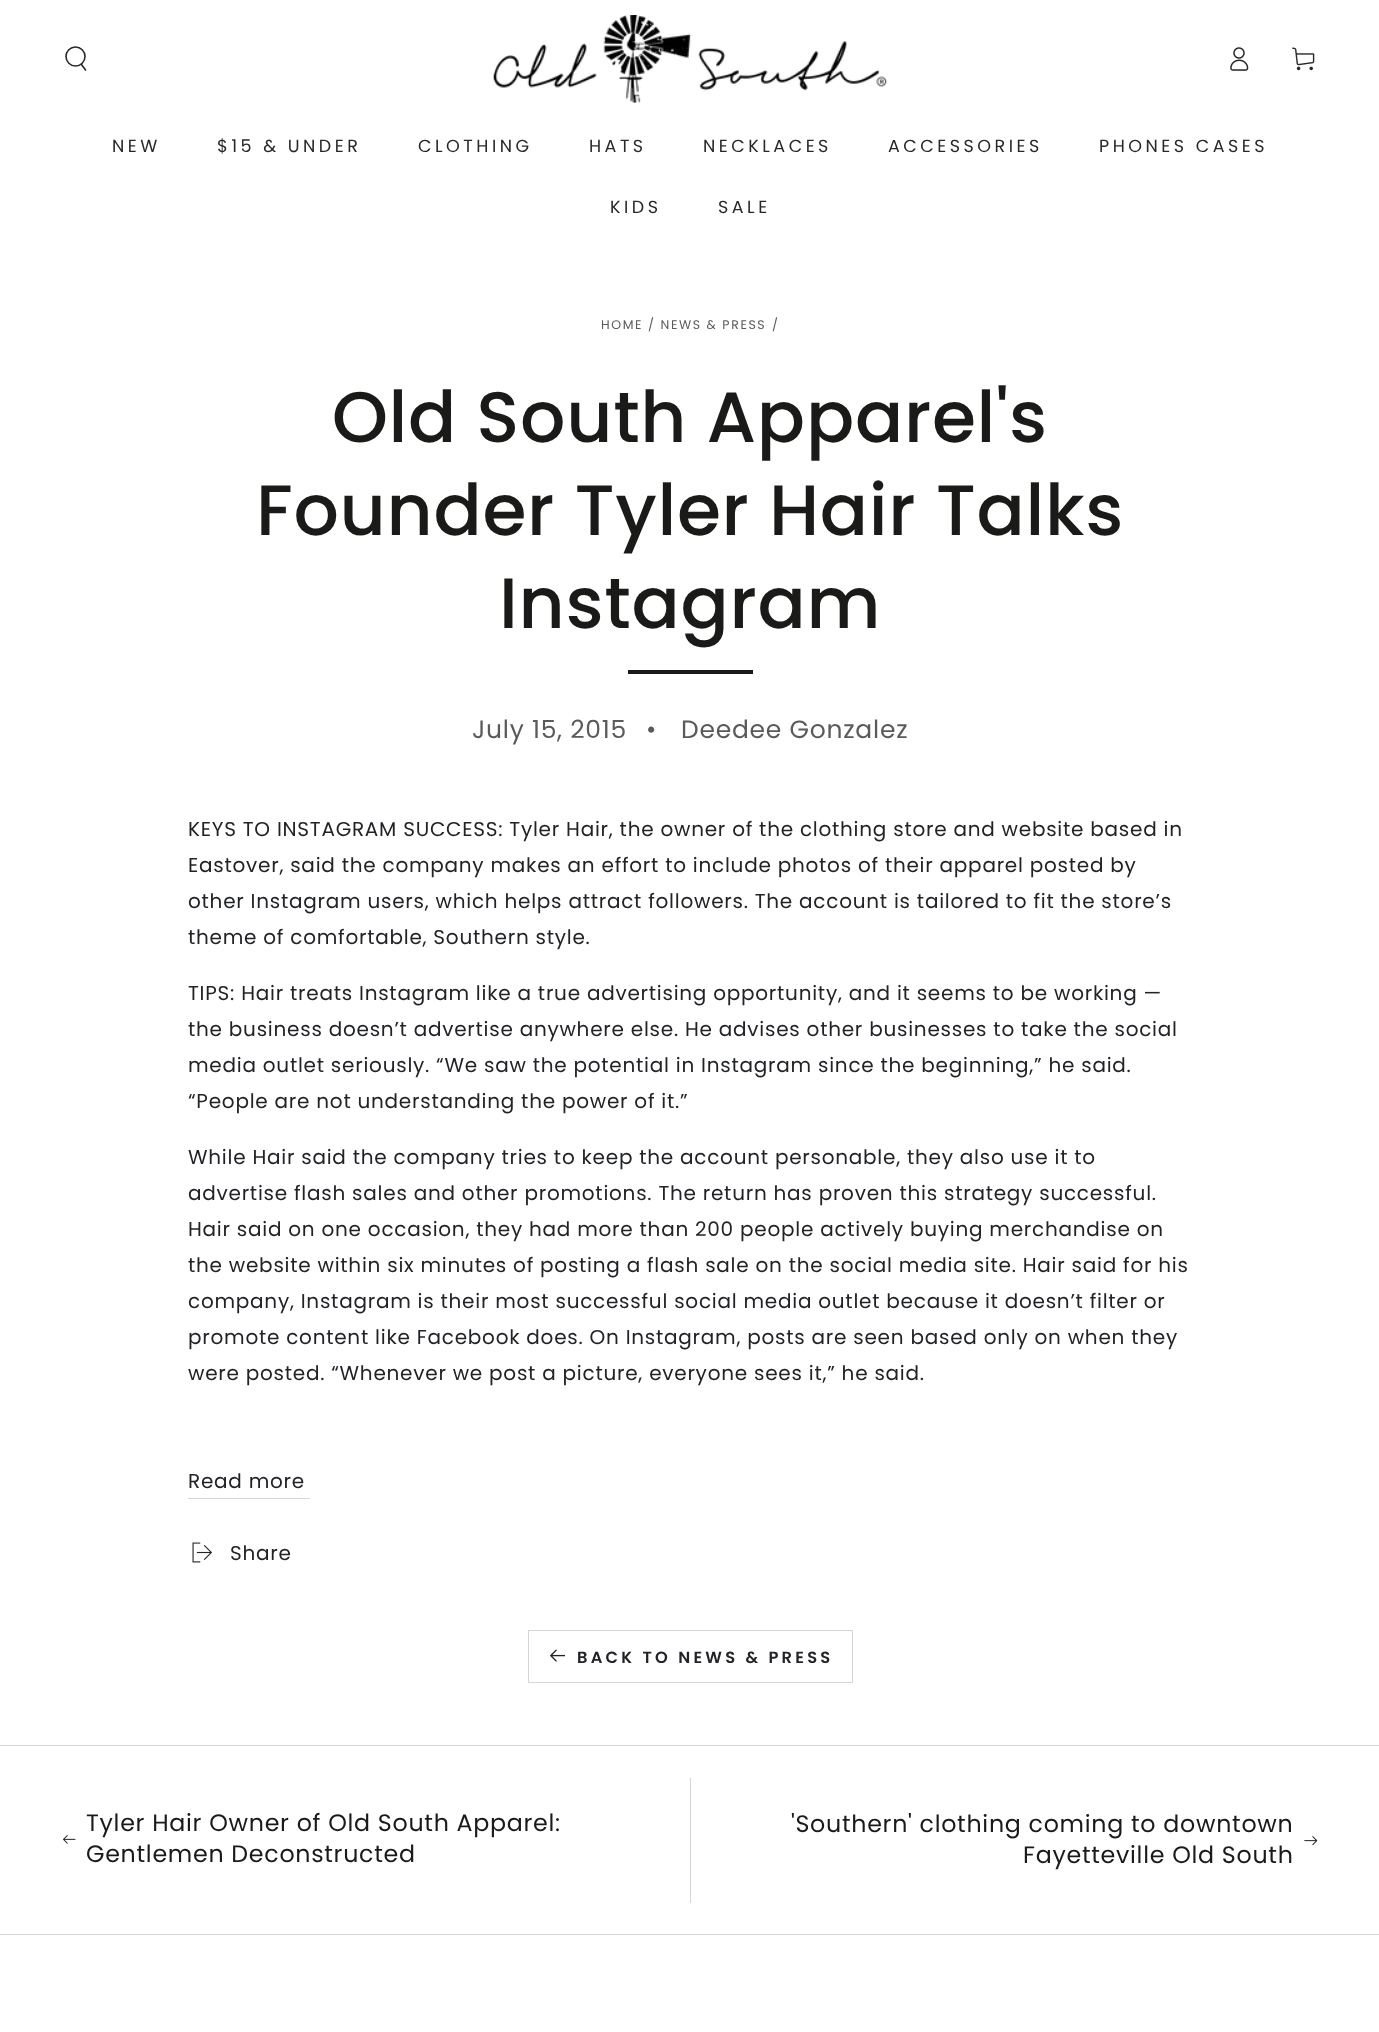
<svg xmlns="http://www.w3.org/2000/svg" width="1379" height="2032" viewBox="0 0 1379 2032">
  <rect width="100%" height="100%" fill="rgb(255,255,255)"/>
  <circle cx="75.5" cy="56.5" r="9.5" fill="none" stroke="rgb(40,40,40)" stroke-width="1.6"/>
  <path d="M81.5 64.5L85.5 70" fill="none" stroke="rgb(40,40,40)" stroke-width="1.6" stroke-linecap="round"/>
  <image x="493" y="15" width="394" height="88" href="pic1.png"/>
  <image x="1230" y="47" width="19" height="24" href="pic2.png"/>
  <image x="1292" y="47" width="23" height="24" href="pic3.png"/>
  <g font-family="Poppins" font-size="17.5" letter-spacing="3.5" fill="rgb(40,40,40)">
    <text x="112" y="152">NEW</text>
    <text x="217" y="152">$15 &amp; UNDER</text>
    <text x="418" y="152">CLOTHING</text>
    <text x="589" y="152">HATS</text>
    <text x="703" y="152">NECKLACES</text>
    <text x="888" y="152">ACCESSORIES</text>
    <text x="1099" y="152">PHONES CASES</text>
    <text x="610" y="213">KIDS</text>
    <text x="718" y="213">SALE</text>
  </g>
  <g font-family="Poppins" font-size="12.5" letter-spacing="1.6" fill="rgb(89,90,92)">
    <text x="601" y="329">HOME</text>
    <text x="648" y="329">/ NEWS &amp; PRESS</text>
    <text x="772" y="329">/</text>
  </g>
  <g font-family="Poppins" font-size="71.25" font-weight="500" letter-spacing="0.7" fill="rgb(26,27,24)">
    <text x="332" y="442">Old South Apparel's</text>
    <text x="256" y="535">Founder Tyler Hair Talks</text>
    <text x="499" y="628">Instagram</text>
  </g>
  <rect x="628" y="670" width="125" height="4" fill="rgb(26,27,24)"/>
  <g font-family="Poppins" font-size="25" letter-spacing="0.75" fill="rgb(89,90,92)">
    <text x="472" y="738">July 15, 2015</text>
    <text x="646" y="738">•</text>
    <text x="681" y="738">Deedee Gonzalez</text>
  </g>
  <g font-family="Poppins" font-size="20" letter-spacing="0.75" fill="rgb(33,35,38)">
    <text>
      <tspan x="188" y="836">KEYS TO INSTAGRAM SUCCESS: Tyler Hair, the owner of the clothing store and website based in</tspan>
      <tspan x="188" y="872">Eastover, said the company makes an effort to include photos of their apparel posted by</tspan>
      <tspan x="188" y="908">other Instagram users, which helps attract followers. The account is tailored to fit the store’s</tspan>
      <tspan x="188" y="944">theme of comfortable, Southern style.</tspan>
    </text>
    <text>
      <tspan x="188" y="1000">TIPS: Hair treats Instagram like a true advertising opportunity, and it seems to be working —</tspan>
      <tspan x="188" y="1036">the business doesn’t advertise anywhere else. He advises other businesses to take the social</tspan>
      <tspan x="188" y="1072">media outlet seriously. “We saw the potential in Instagram since the beginning,” he said.</tspan>
      <tspan x="188" y="1108">“People are not understanding the power of it.”</tspan>
    </text>
    <text>
      <tspan x="188" y="1164">While Hair said the company tries to keep the account personable, they also use it to</tspan>
      <tspan x="188" y="1200">advertise flash sales and other promotions. The return has proven this strategy successful.</tspan>
      <tspan x="188" y="1236">Hair said on one occasion, they had more than 200 people actively buying merchandise on</tspan>
      <tspan x="188" y="1272">the website within six minutes of posting a flash sale on the social media site. Hair said for his</tspan>
      <tspan x="188" y="1308">company, Instagram is their most successful social media outlet because it doesn’t filter or</tspan>
      <tspan x="188" y="1344">promote content like Facebook does. On Instagram, posts are seen based only on when they</tspan>
      <tspan x="188" y="1380">were posted. “Whenever we post a picture, everyone sees it,” he said.</tspan>
    </text>
    <text x="188" y="1488">Read more</text>
  </g>
  <rect x="188" y="1498" width="122" height="1" fill="rgb(210,213,217)"/>
  <image x="192" y="1542" width="20" height="21" href="pic4.png"/>
  <text x="230" y="1560" font-family="Poppins" font-size="20" letter-spacing="0.75" fill="rgb(33,35,38)">Share</text>
  <rect x="528.5" y="1630.5" width="324" height="52" fill="none" stroke="rgb(210,213,217)"/>
  <image x="550" y="1649" width="15" height="13" href="pic5.png"/>
  <text x="577" y="1663" font-family="Poppins" font-size="16.25" font-weight="600" letter-spacing="3.25" fill="rgb(33,35,38)">BACK TO NEWS &amp; PRESS</text>
  <rect x="0" y="1745" width="1379" height="1" fill="rgb(210,213,217)"/>
  <rect x="0" y="1934" width="1379" height="1" fill="rgb(210,213,217)"/>
  <image x="63" y="1835" width="13" height="9" href="pic6.png"/>
  <g font-family="Poppins" font-size="23.75" letter-spacing="0.7" fill="rgb(26,27,24)">
    <text>
      <tspan x="86" y="1831">Tyler Hair Owner of Old South Apparel:</tspan>
      <tspan x="86" y="1862">Gentlemen Deconstructed</tspan>
    </text>
  </g>
  <rect x="690" y="1778" width="1" height="125" fill="rgb(210,213,217)"/>
  <g font-family="Poppins" font-size="23.75" letter-spacing="0.7" fill="rgb(26,27,24)">
    <text x="791" y="1832">'Southern' clothing coming to downtown</text>
    <text x="1023" y="1863">Fayetteville Old South</text>
  </g>
  <image x="1304" y="1836" width="14" height="10" href="pic7.png"/>
</svg>
